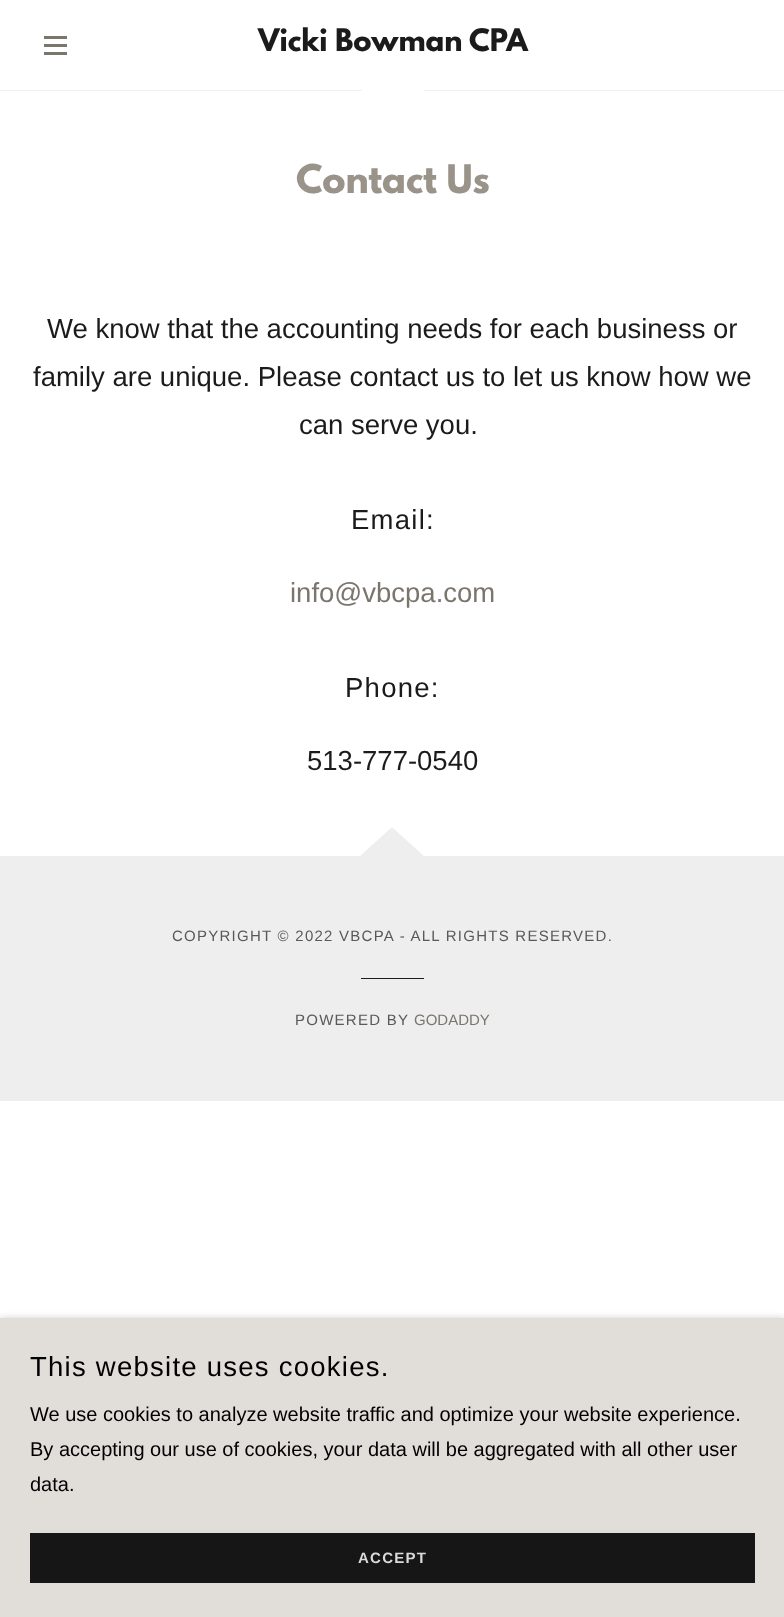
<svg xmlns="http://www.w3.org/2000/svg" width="784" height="1617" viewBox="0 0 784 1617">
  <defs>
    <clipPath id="clip1"><rect x="360" y="828" width="66" height="30"/></clipPath>
  </defs>
  <rect width="100%" height="100%" fill="rgb(255,255,255)"/>
  <rect x="0" y="90" width="784" height="1" fill="rgb(239,239,239)"/>
  <rect x="44" y="36" width="23" height="3" fill="rgb(122,118,110)"/>
  <rect x="44" y="44" width="23" height="3" fill="rgb(122,118,110)"/>
  <rect x="44" y="52" width="23" height="3" fill="rgb(122,118,110)"/>
  <text x="258" y="51" font-family="League Spartan" font-size="27.5" font-weight="bold" fill="rgb(27,27,27)">Vicki Bowman CPA</text>
  <path d="M393 119L426 89H360Z" fill="rgb(255,255,255)" fill-rule="evenodd"/>
  <text x="296" y="193" font-family="League Spartan" font-size="35" font-weight="bold" fill="rgb(153,147,138)">Contact Us</text>
  <g font-family="Liberation Sans" font-size="27.5" fill="rgb(27,27,27)">
    <text x="47" y="338">We know that the accounting needs for each business or</text>
    <text x="33" y="386">family are unique. Please contact us to let us know how we</text>
    <text x="299" y="434">can serve you.</text>
  </g>
  <text x="351" y="529" font-family="Liberation Sans" font-size="27.5" letter-spacing="1.25" fill="rgb(27,27,27)">Email:</text>
  <text x="290" y="602" font-family="Liberation Sans" font-size="27.5" fill="rgb(122,118,110)">info@vbcpa.com</text>
  <text x="345" y="697" font-family="Liberation Sans" font-size="27.5" letter-spacing="1.25" fill="rgb(27,27,27)">Phone:</text>
  <text x="307" y="770" font-family="Liberation Sans" font-size="27.5" fill="rgb(27,27,27)">513-777-0540</text>
  <rect x="0" y="856" width="784" height="245" fill="rgb(238,238,238)"/>
  <g clip-path="url(#clip1)">
    <path d="M392 827L359 857H425Z" fill="rgb(238,238,238)" fill-rule="evenodd"/>
  </g>
  <text x="172" y="941" font-family="Liberation Sans" font-size="15" letter-spacing="1.25" fill="rgb(89,89,89)">COPYRIGHT © 2022 VBCPA - ALL RIGHTS RESERVED.</text>
  <rect x="361" y="978" width="63" height="1" fill="rgb(27,27,27)"/>
  <text x="295" y="1025" font-family="Liberation Sans" font-size="15" letter-spacing="1.25" fill="rgb(89,89,89)">POWERED BY</text>
  <text x="414" y="1025" font-family="Liberation Sans" font-size="15" fill="rgb(122,118,110)">GODADDY</text>
  <rect x="0" y="1320" width="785" height="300" fill="rgba(0,0,0,0.3)" filter="blur(4px)"/>
  <rect x="0" y="1318" width="784" height="299" fill="rgb(225,222,217)"/>
  <text x="30" y="1376" font-family="Liberation Sans" font-size="27.5" letter-spacing="1.25" fill="rgb(0,0,0)">This website uses cookies.</text>
  <g font-family="Liberation Sans" font-size="20" fill="rgb(0,0,0)">
    <text>
      <tspan x="30" y="1421">We use cookies to analyze website traffic and optimize your website experience.</tspan>
      <tspan x="30" y="1456">By accepting our use of cookies, your data will be aggregated with all other user</tspan>
      <tspan x="30" y="1491">data.</tspan>
    </text>
  </g>
  <rect x="30" y="1533" width="725" height="50" fill="rgb(22,22,22)"/>
  <text x="358" y="1563" font-family="Liberation Sans" font-size="15" font-weight="bold" letter-spacing="1.25" fill="rgb(219,219,219)">ACCEPT</text>
</svg>
